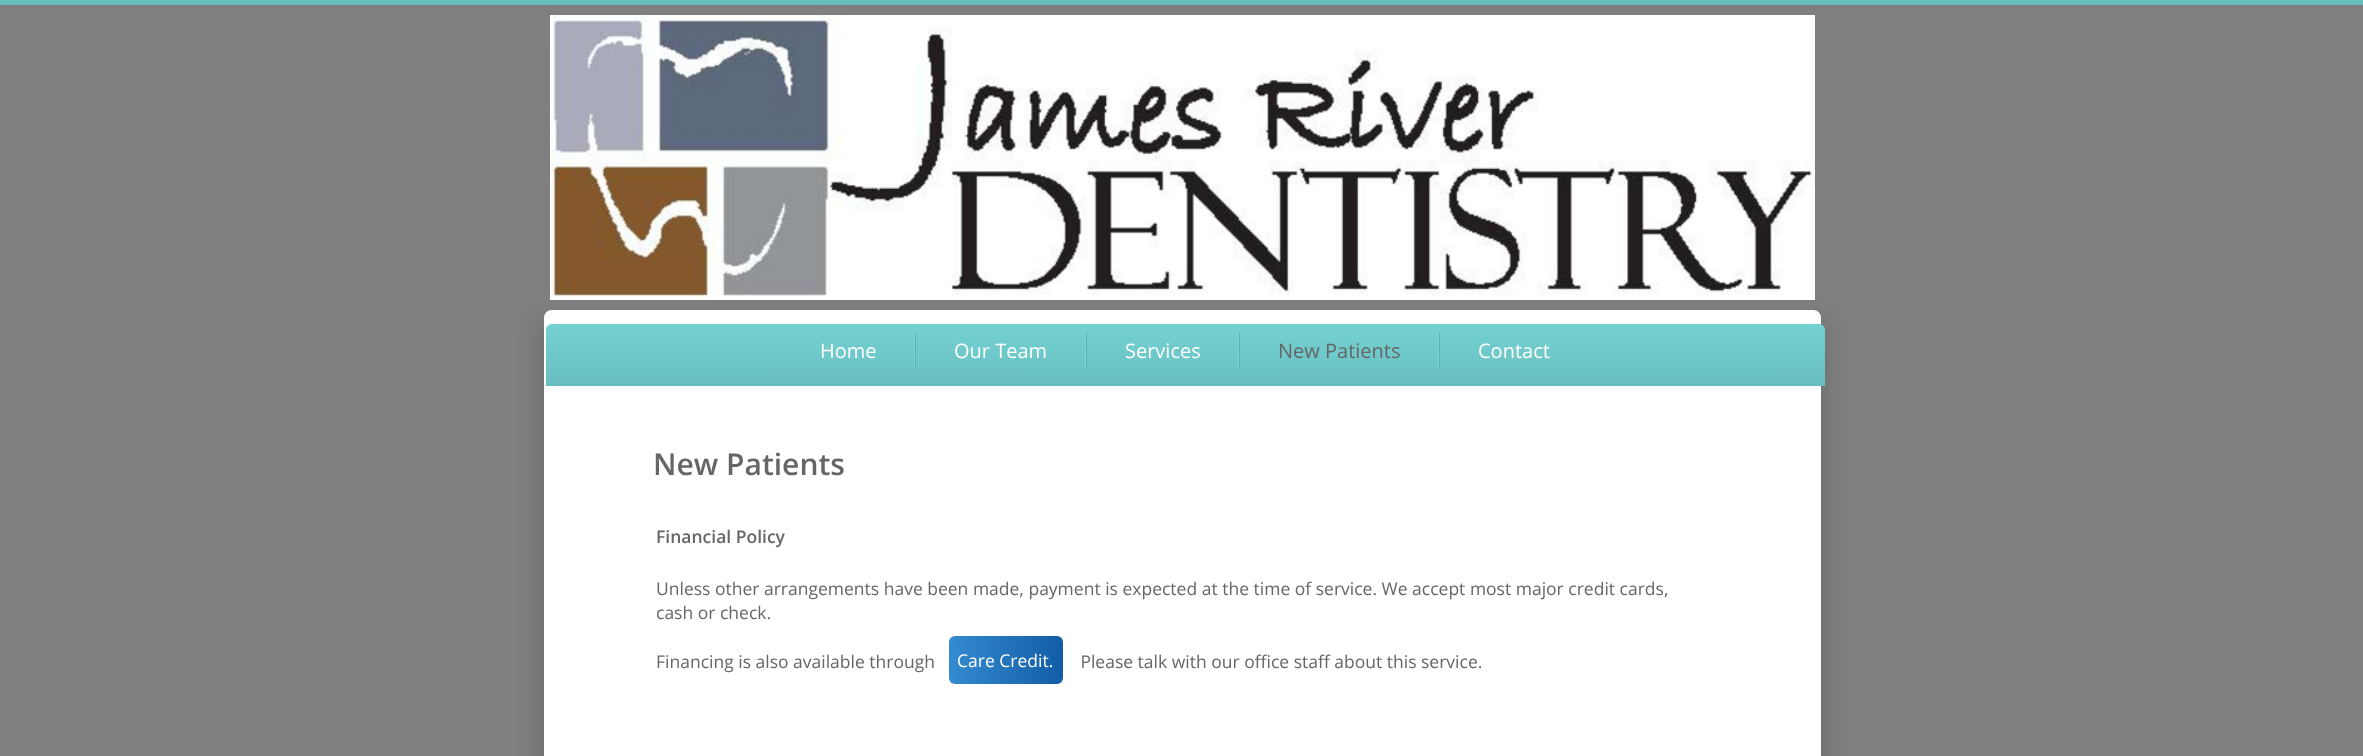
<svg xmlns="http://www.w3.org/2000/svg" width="2363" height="756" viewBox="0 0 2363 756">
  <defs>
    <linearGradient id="g1" gradientUnits="userSpaceOnUse" x1="1186" y1="324" x2="1186" y2="386"><stop offset="0" stop-color="rgb(116,209,210)"/><stop offset="0.51" stop-color="rgb(111,200,201)"/><stop offset="1" stop-color="rgb(105,189,190)"/></linearGradient>
    <linearGradient id="g2" gradientUnits="userSpaceOnUse" x1="949" y1="660" x2="1063" y2="660"><stop offset="0" stop-color="rgb(52,139,207)"/><stop offset="1" stop-color="rgb(18,92,166)"/></linearGradient>
  </defs>
  <rect width="100%" height="100%" fill="rgb(105,189,190)"/>
  <rect x="0" y="5" width="2363" height="751" fill="rgb(127,127,127)"/>
  <rect x="544" y="323" width="1277" height="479" rx="8" fill="rgba(0,0,0,0.2)" filter="blur(12.5px)"/>
  <path d="M552 310H1813C1817.5 310 1821 313.5 1821 318V756H544V318C544 313.5 547.5 310 552 310Z" fill="rgb(255,255,255)"/>
  <image x="550" y="15" width="1265" height="285" href="pic1.png"/>
  <path d="M552 324H1819C1822.5 324 1825 326.5 1825 330V386H546V330C546 326.5 548.5 324 552 324Z" fill="url(#g1)"/>
  <rect x="914" y="333" width="1" height="36" fill="rgb(123,214,215)"/>
  <text x="820" y="358" font-family="Open Sans" font-size="20" fill="rgb(255,255,255)">Home</text>
  <rect x="1085" y="333" width="1" height="36" fill="rgb(123,214,215)"/>
  <rect x="915" y="333" width="1" height="36" fill="rgb(92,175,176)"/>
  <text x="954" y="358" font-family="Open Sans" font-size="20" fill="rgb(255,255,255)">Our Team</text>
  <rect x="1238" y="333" width="1" height="36" fill="rgb(123,214,215)"/>
  <rect x="1086" y="333" width="1" height="36" fill="rgb(92,175,176)"/>
  <text x="1125" y="358" font-family="Open Sans" font-size="20" fill="rgb(255,255,255)">Services</text>
  <rect x="1438" y="333" width="1" height="36" fill="rgb(123,214,215)"/>
  <rect x="1239" y="333" width="1" height="36" fill="rgb(92,175,176)"/>
  <text x="1278" y="358" font-family="Open Sans" font-size="20" fill="rgb(102,102,102)">New Patients</text>
  <rect x="1439" y="333" width="1" height="36" fill="rgb(92,175,176)"/>
  <text x="1478" y="358" font-family="Open Sans" font-size="20" fill="rgb(255,255,255)">Contact</text>
  <text x="653" y="475" font-family="Open Sans" font-size="30" font-weight="600" fill="rgb(102,102,102)">New Patients</text>
  <text x="656" y="543" font-family="Open Sans" font-size="17.5" font-weight="600" fill="rgb(102,102,102)">Financial Policy</text>
  <g font-family="Open Sans" font-size="17.5" fill="rgb(102,102,102)">
    <text>
      <tspan x="656" y="595">Unless other arrangements have been made, payment is expected at the time of service. We accept most major credit cards,</tspan>
      <tspan x="656" y="619">cash or check.</tspan>
    </text>
    <text x="656" y="668" xml:space="preserve">Financing is also available through                                Please talk with our office staff about this service.</text>
  </g>
  <rect x="949" y="636" width="114" height="48" rx="6" fill="url(#g2)"/>
  <text x="957" y="667" font-family="Open Sans" font-size="17.5" fill="rgb(255,255,255)">Care Credit.</text>
</svg>
